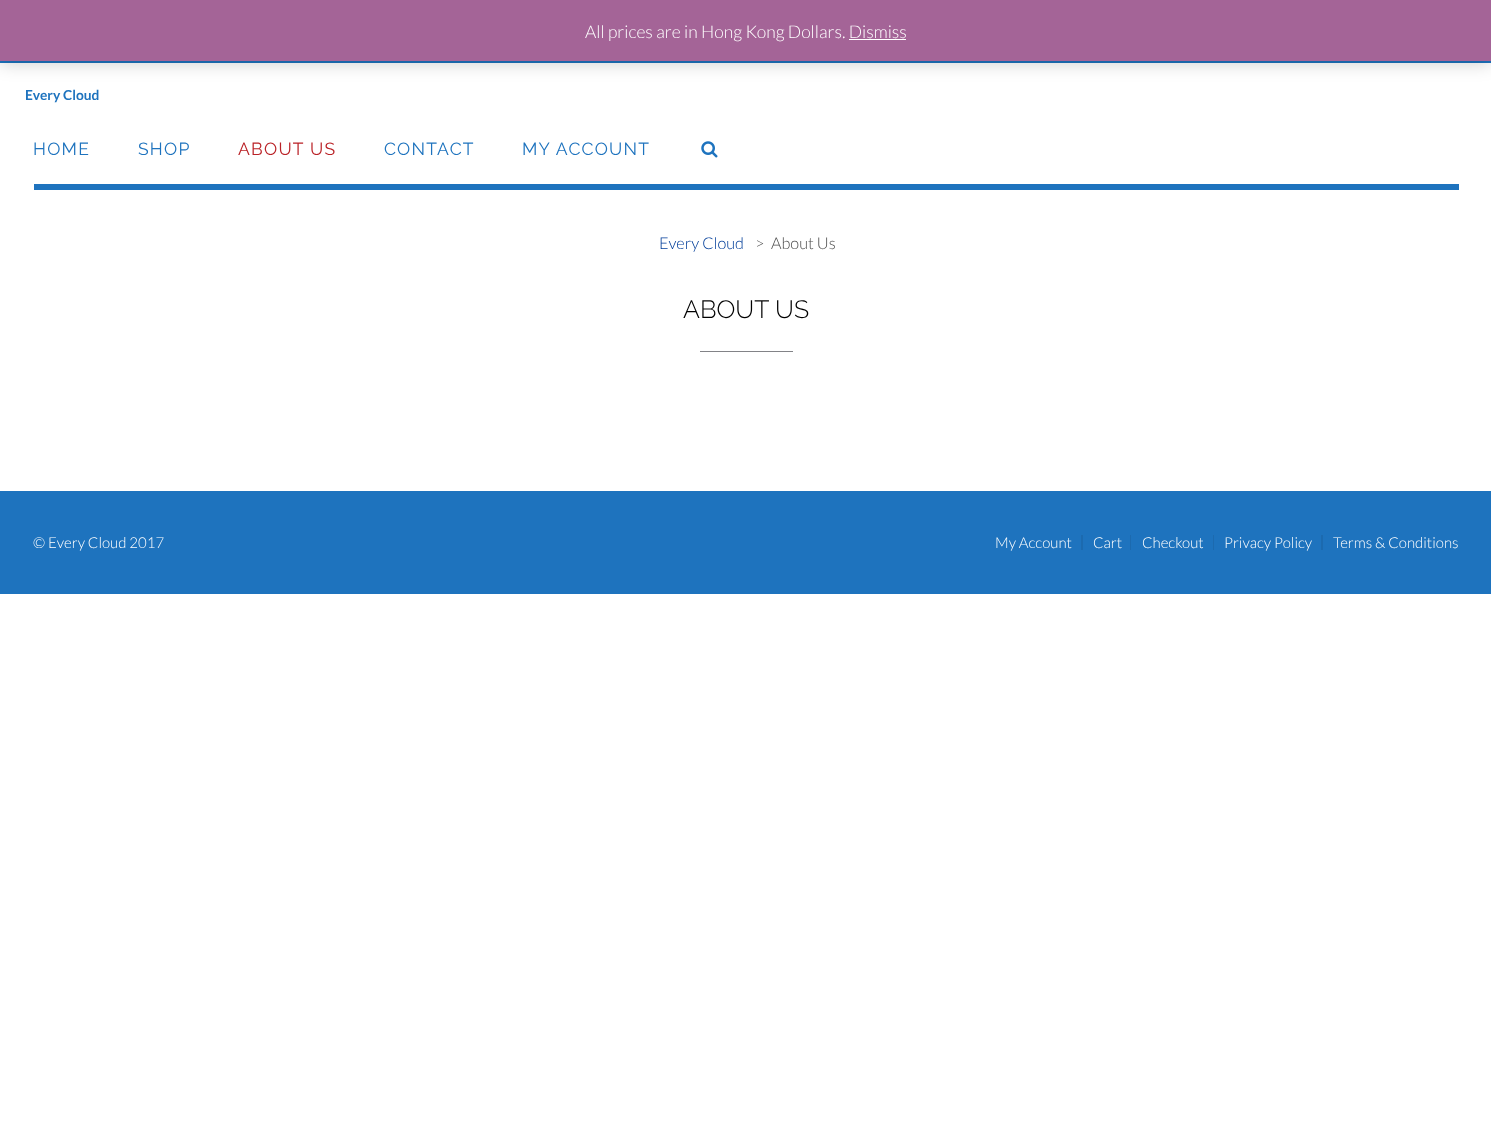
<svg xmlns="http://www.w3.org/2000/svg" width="1491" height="1124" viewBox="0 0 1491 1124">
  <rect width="100%" height="100%" fill="rgb(255,255,255)"/>
  <rect x="0" y="61" width="1491" height="2" fill="rgb(30,115,190)"/>
  <rect x="0" y="1" width="1491" height="62" fill="rgba(0,0,0,0.2)" filter="blur(9px)"/>
  <rect x="0" y="0" width="1491" height="61" fill="rgb(164,100,151)"/>
  <text x="585" y="38" font-family="Lato" font-size="17.5" font-weight="300" fill="rgb(255,255,255)">All prices are in Hong Kong Dollars. Dismiss</text>
  <rect x="849" y="39" width="57" height="1" fill="rgb(255,255,255)"/>
  <text x="25" y="100" font-family="Lato" font-size="13.75" font-weight="bold" fill="rgb(30,115,190)">Every Cloud</text>
  <rect x="34" y="184" width="1425" height="6" fill="rgb(30,115,190)"/>
  <g font-family="Raleway" font-size="17.5" letter-spacing="1.25" fill="rgb(30,115,190)">
    <text x="33" y="155">HOME</text>
    <text x="138" y="155">SHOP</text>
  </g>
  <text x="238" y="155" font-family="Raleway" font-size="17.5" letter-spacing="1.25" fill="rgb(186,34,39)">ABOUT US</text>
  <g font-family="Raleway" font-size="17.5" letter-spacing="1.25" fill="rgb(30,115,190)">
    <text x="384" y="155">CONTACT</text>
    <text x="522" y="155">MY ACCOUNT</text>
  </g>
  <image x="701" y="141" width="17" height="17" href="pic1.png"/>
  <text x="659" y="249" font-family="Lato" font-size="16.25" font-weight="300" fill="rgb(0,61,153)">Every Cloud</text>
  <g font-family="Lato" font-size="16.25" font-weight="300" fill="rgb(79,79,79)">
    <text x="755" y="249">&gt;</text>
    <text x="771" y="249">About Us</text>
  </g>
  <text x="683" y="318" font-family="Raleway" font-size="25" font-weight="300" fill="rgb(0,0,0)">ABOUT US</text>
  <rect x="700" y="351" width="93" height="1" fill="rgb(130,131,135)"/>
  <rect x="0" y="491" width="1491" height="103" fill="rgb(30,115,190)"/>
  <text x="33" y="548" font-family="Lato" font-size="15" font-weight="300" fill="rgb(255,255,255)">© Every Cloud 2017</text>
  <rect x="1081" y="535" width="2" height="15" fill="rgb(28,106,175)"/>
  <text x="995" y="548" font-family="Lato" font-size="15" font-weight="300" fill="rgb(255,255,255)">My Account</text>
  <rect x="1130" y="535" width="1" height="15" fill="rgb(28,106,175)"/>
  <text x="1093" y="548" font-family="Lato" font-size="15" font-weight="300" fill="rgb(255,255,255)">Cart</text>
  <rect x="1213" y="535" width="1" height="15" fill="rgb(28,106,175)"/>
  <text x="1142" y="548" font-family="Lato" font-size="15" font-weight="300" fill="rgb(255,255,255)">Checkout</text>
  <rect x="1321" y="535" width="2" height="15" fill="rgb(28,106,175)"/>
  <g font-family="Lato" font-size="15" font-weight="300" fill="rgb(255,255,255)">
    <text x="1224" y="548">Privacy Policy</text>
    <text x="1333" y="548">Terms &amp; Conditions</text>
  </g>
</svg>
